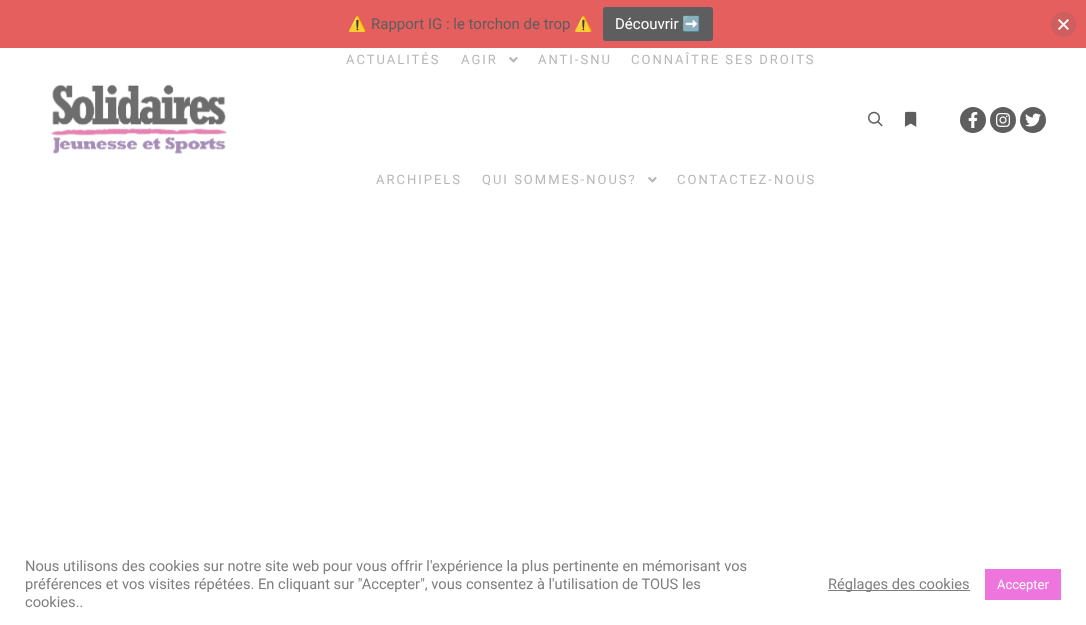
<svg xmlns="http://www.w3.org/2000/svg" width="1086" height="625" viewBox="0 0 1086 625">
  <rect width="100%" height="100%" fill="rgb(255,255,255)"/>
  <rect x="0" y="0" width="1086" height="48" fill="rgb(229,95,95)"/>
  <text x="348" y="29" font-family="Noto Color Emoji" font-size="15" fill="rgb(94,94,94)">⚠️</text>
  <text x="371" y="29" font-family="Roboto" font-size="15" fill="rgb(94,94,94)">Rapport IG : le torchon de trop</text>
  <text x="574" y="29" font-family="Noto Color Emoji" font-size="15" fill="rgb(94,94,94)">⚠️</text>
  <rect x="603" y="7" width="110" height="34" rx="3" fill="rgb(94,94,94)"/>
  <text x="615" y="29" font-family="Roboto" font-size="15" fill="rgb(255,255,255)">Découvrir</text>
  <text x="682" y="29" font-family="Noto Color Emoji" font-size="15" fill="rgb(255,255,255)">➡️</text>
  <circle cx="1063.5" cy="24.5" r="12.5" fill="rgb(205,95,95)"/>
  <image x="1058" y="19" width="11" height="11" href="pic1.png"/>
  <image x="51" y="84" width="176" height="70" href="pic2.png"/>
  <g font-family="Roboto" font-size="13" letter-spacing="2" fill="rgb(183,183,183)">
    <text x="346" y="64">ACTUALITÉS</text>
    <text x="461" y="64">AGIR</text>
  </g>
  <image x="509" y="57" width="9" height="6" href="pic3.png"/>
  <g font-family="Roboto" font-size="13" letter-spacing="2" fill="rgb(183,183,183)">
    <text x="538" y="64">ANTI-SNU</text>
    <text x="631" y="64">CONNAÎTRE SES DROITS</text>
    <text x="376" y="184">ARCHIPELS</text>
    <text x="482" y="184">QUI SOMMES-NOUS?</text>
  </g>
  <image x="648" y="177" width="9" height="6" href="pic3.png"/>
  <text x="677" y="184" font-family="Roboto" font-size="13" letter-spacing="2" fill="rgb(183,183,183)">CONTACTEZ-NOUS</text>
  <image x="868" y="111" width="15" height="16" href="pic4.png"/>
  <image x="905" y="111" width="12" height="16" href="pic5.png"/>
  <circle cx="973" cy="120" r="13" fill="rgb(94,94,94)"/>
  <image x="968" y="112" width="10" height="16" href="pic6.png"/>
  <circle cx="1003" cy="120" r="13" fill="rgb(94,94,94)"/>
  <image x="996" y="113" width="14" height="14" href="pic7.png"/>
  <circle cx="1033" cy="120" r="13" fill="rgb(94,94,94)"/>
  <image x="1025" y="113" width="16" height="14" href="pic8.png"/>
  <g font-family="Roboto" font-size="14.65" fill="rgb(126,126,126)">
    <text>
      <tspan x="25" y="571">Nous utilisons des cookies sur notre site web pour vous offrir l'expérience la plus pertinente en mémorisant vos</tspan>
      <tspan x="25" y="589">préférences et vos visites répétées. En cliquant sur "Accepter", vous consentez à l'utilisation de TOUS les</tspan>
      <tspan x="25" y="607">cookies..</tspan>
    </text>
  </g>
  <rect x="828" y="590" width="142" height="1" fill="rgb(126,126,126)"/>
  <text x="828" y="589" font-family="Roboto" font-size="14.65" fill="rgb(126,126,126)">Réglages des cookies</text>
  <rect x="985" y="569" width="76" height="31" fill="rgb(239,117,222)"/>
  <text x="997" y="589" font-family="Roboto" font-size="13" fill="rgb(255,255,255)">Accepter</text>
</svg>
